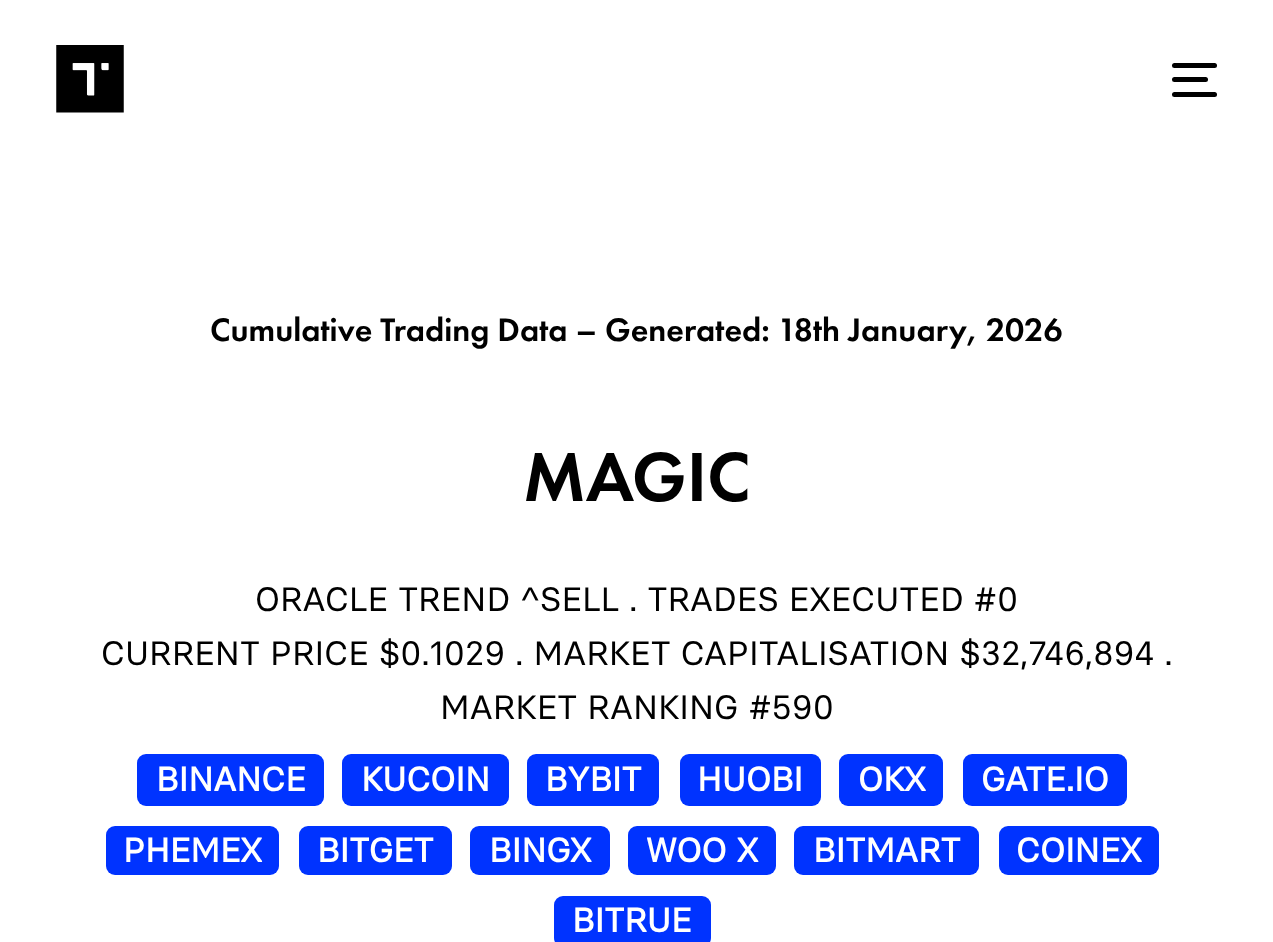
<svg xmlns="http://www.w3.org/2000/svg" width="1273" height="942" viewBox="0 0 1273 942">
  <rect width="100%" height="100%" fill="rgb(255,255,255)"/>
  <image x="56" y="45" width="68" height="68" href="pic1.png"/>
  <rect x="1172" y="63" width="45" height="5" rx="2.5" fill="rgb(0,0,0)"/>
  <rect x="1172" y="77" width="36" height="5" rx="2.5" fill="rgb(0,0,0)"/>
  <rect x="1172" y="92" width="45" height="5" rx="2.5" fill="rgb(0,0,0)"/>
  <text x="210" y="341" font-family="Futura PT" font-size="33.75" font-weight="500" fill="rgb(0,0,0)">Cumulative Trading Data – Generated: 18th January, 2026</text>
  <text x="523" y="501" font-family="Futura PT" font-size="72" font-weight="500" fill="rgb(0,0,0)">MAGIC</text>
  <g font-family="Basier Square" font-size="33.75" fill="rgb(0,0,0)">
    <text x="255" y="611">ORACLE TREND ^SELL . TRADES EXECUTED #0</text>
    <text x="101" y="665">CURRENT PRICE $0.1029 . MARKET CAPITALISATION $32,746,894 .</text>
    <text x="440" y="719">MARKET RANKING #590</text>
  </g>
  <rect x="137" y="754" width="187" height="52" rx="9" fill="rgb(0,51,255)"/>
  <text x="156" y="791" font-family="Basier Square" font-size="33.75" font-weight="bold" fill="rgb(255,255,255)">BINANCE</text>
  <rect x="342" y="754" width="167" height="52" rx="9" fill="rgb(0,51,255)"/>
  <text x="361" y="791" font-family="Basier Square" font-size="33.75" font-weight="bold" fill="rgb(255,255,255)">KUCOIN</text>
  <rect x="527" y="754" width="132" height="52" rx="9" fill="rgb(0,51,255)"/>
  <text x="545" y="791" font-family="Basier Square" font-size="33.75" font-weight="bold" fill="rgb(255,255,255)">BYBIT</text>
  <rect x="680" y="754" width="141" height="52" rx="9" fill="rgb(0,51,255)"/>
  <text x="697" y="791" font-family="Basier Square" font-size="33.75" font-weight="bold" fill="rgb(255,255,255)">HUOBI</text>
  <rect x="839" y="754" width="104" height="52" rx="9" fill="rgb(0,51,255)"/>
  <text x="858" y="791" font-family="Basier Square" font-size="33.75" font-weight="bold" fill="rgb(255,255,255)">OKX</text>
  <rect x="963" y="754" width="164" height="52" rx="9" fill="rgb(0,51,255)"/>
  <text x="981" y="791" font-family="Basier Square" font-size="33.75" font-weight="bold" fill="rgb(255,255,255)">GATE.IO</text>
  <rect x="106" y="826" width="173" height="49" rx="9" fill="rgb(0,51,255)"/>
  <text x="123" y="862" font-family="Basier Square" font-size="33.75" font-weight="bold" fill="rgb(255,255,255)">PHEMEX</text>
  <rect x="299" y="826" width="153" height="49" rx="9" fill="rgb(0,51,255)"/>
  <text x="317" y="862" font-family="Basier Square" font-size="33.75" font-weight="bold" fill="rgb(255,255,255)">BITGET</text>
  <rect x="470" y="826" width="140" height="49" rx="9" fill="rgb(0,51,255)"/>
  <text x="489" y="862" font-family="Basier Square" font-size="33.75" font-weight="bold" fill="rgb(255,255,255)">BINGX</text>
  <rect x="628" y="826" width="148" height="49" rx="9" fill="rgb(0,51,255)"/>
  <text x="646" y="862" font-family="Basier Square" font-size="33.75" font-weight="bold" fill="rgb(255,255,255)">WOO X</text>
  <rect x="794" y="826" width="185" height="49" rx="9" fill="rgb(0,51,255)"/>
  <text x="813" y="862" font-family="Basier Square" font-size="33.75" font-weight="bold" fill="rgb(255,255,255)">BITMART</text>
  <rect x="999" y="826" width="160" height="49" rx="9" fill="rgb(0,51,255)"/>
  <text x="1016" y="862" font-family="Basier Square" font-size="33.75" font-weight="bold" fill="rgb(255,255,255)">COINEX</text>
  <rect x="554" y="896" width="157" height="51" rx="9" fill="rgb(0,51,255)"/>
  <text x="572" y="932" font-family="Basier Square" font-size="33.75" font-weight="bold" fill="rgb(255,255,255)">BITRUE</text>
</svg>
